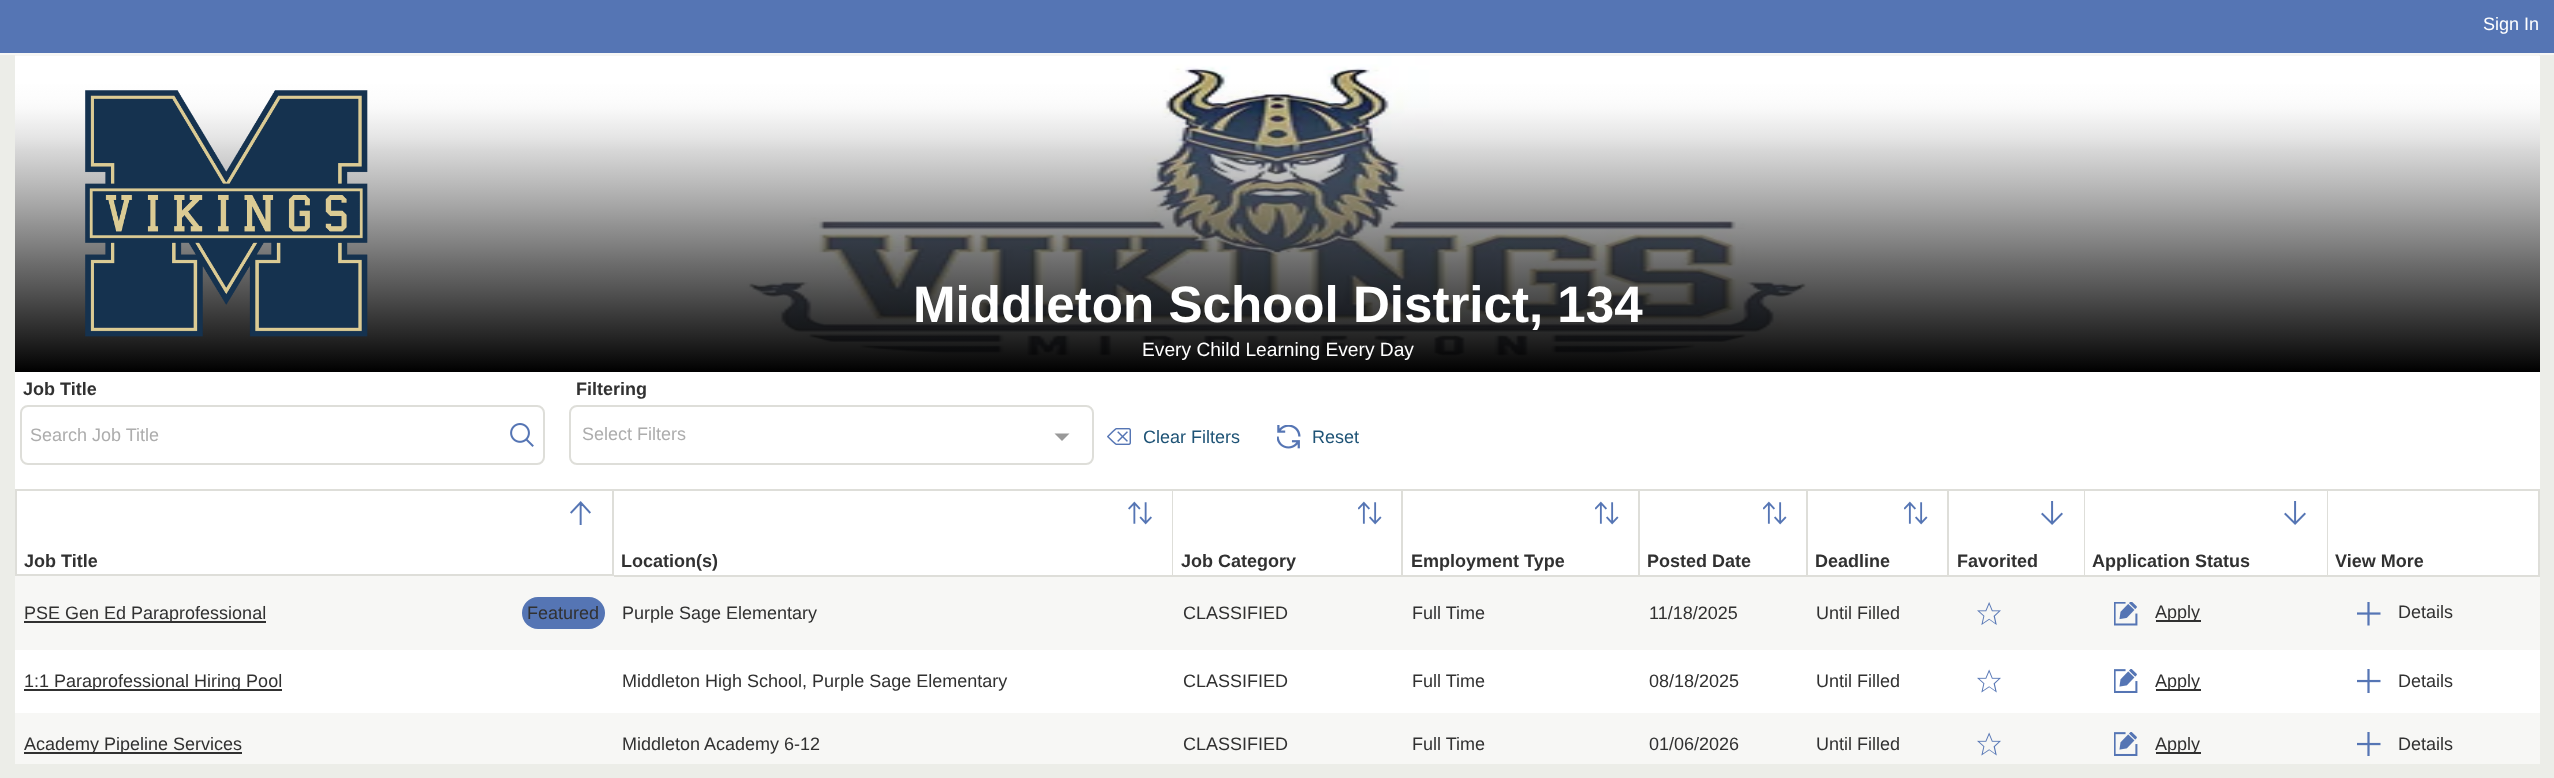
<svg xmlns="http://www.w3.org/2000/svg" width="2554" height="778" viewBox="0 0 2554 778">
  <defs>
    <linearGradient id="g1" gradientUnits="userSpaceOnUse" x1="1277" y1="55" x2="1277" y2="372"><stop offset="0" stop-color="rgb(217,217,217)" stop-opacity="0"/><stop offset="0.05" stop-color="rgb(213,213,213)" stop-opacity="0"/><stop offset="0.09" stop-color="rgb(213,213,213)" stop-opacity="0.02"/><stop offset="0.12" stop-color="rgb(209,209,209)" stop-opacity="0.04"/><stop offset="0.15" stop-color="rgb(203,203,203)" stop-opacity="0.07"/><stop offset="0.17" stop-color="rgb(194,194,194)" stop-opacity="0.1"/><stop offset="0.19" stop-color="rgb(184,184,184)" stop-opacity="0.15"/><stop offset="0.22" stop-color="rgb(172,172,172)" stop-opacity="0.21"/><stop offset="0.26" stop-color="rgb(158,158,158)" stop-opacity="0.27"/><stop offset="0.3" stop-color="rgb(142,142,142)" stop-opacity="0.35"/><stop offset="0.36" stop-color="rgb(124,124,124)" stop-opacity="0.43"/><stop offset="0.44" stop-color="rgb(103,103,103)" stop-opacity="0.52"/><stop offset="0.54" stop-color="rgb(81,81,81)" stop-opacity="0.63"/><stop offset="0.66" stop-color="rgb(56,56,56)" stop-opacity="0.74"/><stop offset="0.82" stop-color="rgb(29,29,29)" stop-opacity="0.87"/><stop offset="1" stop-color="rgb(0,0,0)"/></linearGradient>
  </defs>
  <rect width="100%" height="100%" fill="rgb(236,237,232)"/>
  <rect x="0" y="0" width="2554" height="53" fill="rgb(85,117,180)"/>
  <text x="2483" y="30" font-family="Liberation Sans" font-size="18" fill="rgb(255,255,255)">Sign In</text>
  <rect x="0" y="53" width="2554" height="2" fill="rgb(247,247,245)"/>
  <rect x="15" y="56" width="2525" height="313" fill="rgb(255,255,255)"/>
  <image x="15" y="55" width="2525" height="303" href="pic1.png"/>
  <rect x="15" y="84" width="2525" height="288" fill="url(#g1)"/>
  <image x="85" y="90" width="283" height="247" href="pic2.png"/>
  <text x="913" y="322" font-family="Liberation Sans" font-size="51.1" font-weight="bold" fill="rgb(255,255,255)">Middleton School District, 134</text>
  <text x="1142" y="356" font-family="Liberation Sans" font-size="19.2" fill="rgb(255,255,255)">Every Child Learning Every Day</text>
  <rect x="15" y="372" width="2525" height="341" fill="rgb(255,255,255)"/>
  <text x="23" y="395" font-family="Liberation Sans" font-size="18" font-weight="bold" fill="rgb(49,49,49)">Job Title</text>
  <rect x="21" y="406" width="523" height="58" rx="7" fill="none" stroke="rgb(222,222,217)" stroke-width="2"/>
  <text x="30" y="441" font-family="Liberation Sans" font-size="18" fill="rgb(173,173,173)">Search Job Title</text>
  <image x="510" y="423" width="24" height="24" href="pic3.png"/>
  <text x="576" y="395" font-family="Liberation Sans" font-size="18" font-weight="bold" fill="rgb(49,49,49)">Filtering</text>
  <rect x="570" y="406" width="523" height="58" rx="7" fill="none" stroke="rgb(222,222,217)" stroke-width="2"/>
  <text x="582" y="440" font-family="Liberation Sans" font-size="18" fill="rgb(173,173,173)">Select Filters</text>
  <path d="M1054.5 433.5H1069.5L1062 441Z" fill="rgb(153,153,153)"/>
  <image x="1107" y="428" width="24" height="17" href="pic4.png"/>
  <text x="1143" y="443" font-family="Liberation Sans" font-size="18" fill="rgb(30,83,118)">Clear Filters</text>
  <image x="1277" y="425" width="24" height="24" href="pic5.png"/>
  <text x="1312" y="443" font-family="Liberation Sans" font-size="18" fill="rgb(30,83,118)">Reset</text>
  <rect x="16" y="490" width="597" height="85" fill="none" stroke="rgb(222,222,217)" stroke-width="2"/>
  <image x="570" y="501" width="21" height="24" href="pic6.png"/>
  <text x="24" y="567" font-family="Liberation Sans" font-size="18" font-weight="bold" fill="rgb(49,49,49)">Job Title</text>
  <rect x="614" y="489" width="1926" height="2" fill="rgb(222,222,217)"/>
  <rect x="1172" y="489" width="1" height="87" fill="rgb(222,222,217)"/>
  <rect x="15" y="576" width="2525" height="74" fill="rgb(247,247,245)"/>
  <rect x="614" y="575" width="559" height="2" fill="rgb(222,222,217)"/>
  <image x="1128" y="501" width="24" height="24" href="pic7.png"/>
  <text x="621" y="567" font-family="Liberation Sans" font-size="18" font-weight="bold" fill="rgb(49,49,49)">Location(s)</text>
  <rect x="1401" y="489" width="2" height="87" fill="rgb(222,222,217)"/>
  <rect x="1173" y="575" width="230" height="2" fill="rgb(222,222,217)"/>
  <image x="1358" y="501" width="24" height="24" href="pic8.png"/>
  <text x="1181" y="567" font-family="Liberation Sans" font-size="18" font-weight="bold" fill="rgb(49,49,49)">Job Category</text>
  <rect x="1638" y="489" width="2" height="87" fill="rgb(222,222,217)"/>
  <rect x="1403" y="575" width="237" height="2" fill="rgb(222,222,217)"/>
  <image x="1595" y="501" width="24" height="24" href="pic8.png"/>
  <text x="1411" y="567" font-family="Liberation Sans" font-size="18" font-weight="bold" fill="rgb(49,49,49)">Employment Type</text>
  <rect x="1806" y="489" width="2" height="87" fill="rgb(222,222,217)"/>
  <rect x="1640" y="575" width="168" height="2" fill="rgb(222,222,217)"/>
  <image x="1763" y="501" width="24" height="24" href="pic8.png"/>
  <text x="1647" y="567" font-family="Liberation Sans" font-size="18" font-weight="bold" fill="rgb(49,49,49)">Posted Date</text>
  <rect x="1947" y="489" width="2" height="87" fill="rgb(222,222,217)"/>
  <rect x="1808" y="575" width="141" height="2" fill="rgb(222,222,217)"/>
  <image x="1904" y="501" width="24" height="24" href="pic8.png"/>
  <text x="1815" y="567" font-family="Liberation Sans" font-size="18" font-weight="bold" fill="rgb(49,49,49)">Deadline</text>
  <rect x="2084" y="489" width="1" height="87" fill="rgb(222,222,217)"/>
  <rect x="1949" y="575" width="136" height="2" fill="rgb(222,222,217)"/>
  <image x="2041" y="501" width="22" height="24" href="pic9.png"/>
  <text x="1957" y="567" font-family="Liberation Sans" font-size="18" font-weight="bold" fill="rgb(49,49,49)">Favorited</text>
  <rect x="2327" y="489" width="1" height="87" fill="rgb(222,222,217)"/>
  <rect x="2085" y="575" width="243" height="2" fill="rgb(222,222,217)"/>
  <image x="2284" y="501" width="22" height="24" href="pic9.png"/>
  <text x="2092" y="567" font-family="Liberation Sans" font-size="18" font-weight="bold" fill="rgb(49,49,49)">Application Status</text>
  <rect x="2538" y="489" width="2" height="87" fill="rgb(222,222,217)"/>
  <rect x="2328" y="575" width="212" height="2" fill="rgb(222,222,217)"/>
  <text x="2335" y="567" font-family="Liberation Sans" font-size="18" font-weight="bold" fill="rgb(49,49,49)">View More</text>
  <rect x="24" y="621" width="242" height="2" fill="rgb(49,49,49)"/>
  <text x="24" y="619" font-family="Liberation Sans" font-size="18" fill="rgb(49,49,49)">PSE Gen Ed Paraprofessional</text>
  <rect x="522" y="597" width="83" height="32" rx="16" fill="rgb(85,117,180)"/>
  <g font-family="Liberation Sans" font-size="18" fill="rgb(49,49,49)">
    <text x="527" y="619">Featured</text>
    <text x="622" y="619">Purple Sage Elementary</text>
    <text x="1183" y="619">CLASSIFIED</text>
    <text x="1412" y="619">Full Time</text>
    <text x="1649" y="619">11/18/2025</text>
    <text x="1816" y="619">Until Filled</text>
  </g>
  <image x="1977" y="602" width="24" height="23" href="pic10.png"/>
  <image x="2114" y="602" width="24" height="24" href="pic11.png"/>
  <rect x="2156" y="620" width="45" height="2" fill="rgb(49,49,49)"/>
  <text x="2155" y="618" font-family="Liberation Sans" font-size="18" fill="rgb(49,49,49)">Apply</text>
  <image x="2357" y="602" width="24" height="24" href="pic12.png"/>
  <text x="2398" y="618" font-family="Liberation Sans" font-size="18" fill="rgb(49,49,49)">Details</text>
  <rect x="24" y="689" width="258" height="2" fill="rgb(49,49,49)"/>
  <g font-family="Liberation Sans" font-size="18" fill="rgb(49,49,49)">
    <text x="24" y="687">1:1 Paraprofessional Hiring Pool</text>
    <text x="622" y="687">Middleton High School, Purple Sage Elementary</text>
    <text x="1183" y="687">CLASSIFIED</text>
    <text x="1412" y="687">Full Time</text>
    <text x="1649" y="687">08/18/2025</text>
    <text x="1816" y="687">Until Filled</text>
  </g>
  <image x="1977" y="669" width="24" height="24" href="pic13.png"/>
  <image x="2114" y="669" width="24" height="24" href="pic14.png"/>
  <rect x="2156" y="689" width="45" height="2" fill="rgb(49,49,49)"/>
  <text x="2155" y="687" font-family="Liberation Sans" font-size="18" fill="rgb(49,49,49)">Apply</text>
  <image x="2357" y="669" width="24" height="24" href="pic15.png"/>
  <text x="2398" y="687" font-family="Liberation Sans" font-size="18" fill="rgb(49,49,49)">Details</text>
  <rect x="15" y="713" width="2525" height="51" fill="rgb(247,247,245)"/>
  <rect x="24" y="752" width="218" height="2" fill="rgb(49,49,49)"/>
  <g font-family="Liberation Sans" font-size="18" fill="rgb(49,49,49)">
    <text x="24" y="750">Academy Pipeline Services</text>
    <text x="622" y="750">Middleton Academy 6-12</text>
    <text x="1183" y="750">CLASSIFIED</text>
    <text x="1412" y="750">Full Time</text>
    <text x="1649" y="750">01/06/2026</text>
    <text x="1816" y="750">Until Filled</text>
  </g>
  <image x="1977" y="732" width="24" height="24" href="pic16.png"/>
  <image x="2114" y="732" width="24" height="24" href="pic17.png"/>
  <rect x="2156" y="752" width="45" height="2" fill="rgb(49,49,49)"/>
  <text x="2155" y="750" font-family="Liberation Sans" font-size="18" fill="rgb(49,49,49)">Apply</text>
  <image x="2357" y="732" width="24" height="24" href="pic18.png"/>
  <text x="2398" y="750" font-family="Liberation Sans" font-size="18" fill="rgb(49,49,49)">Details</text>
</svg>
